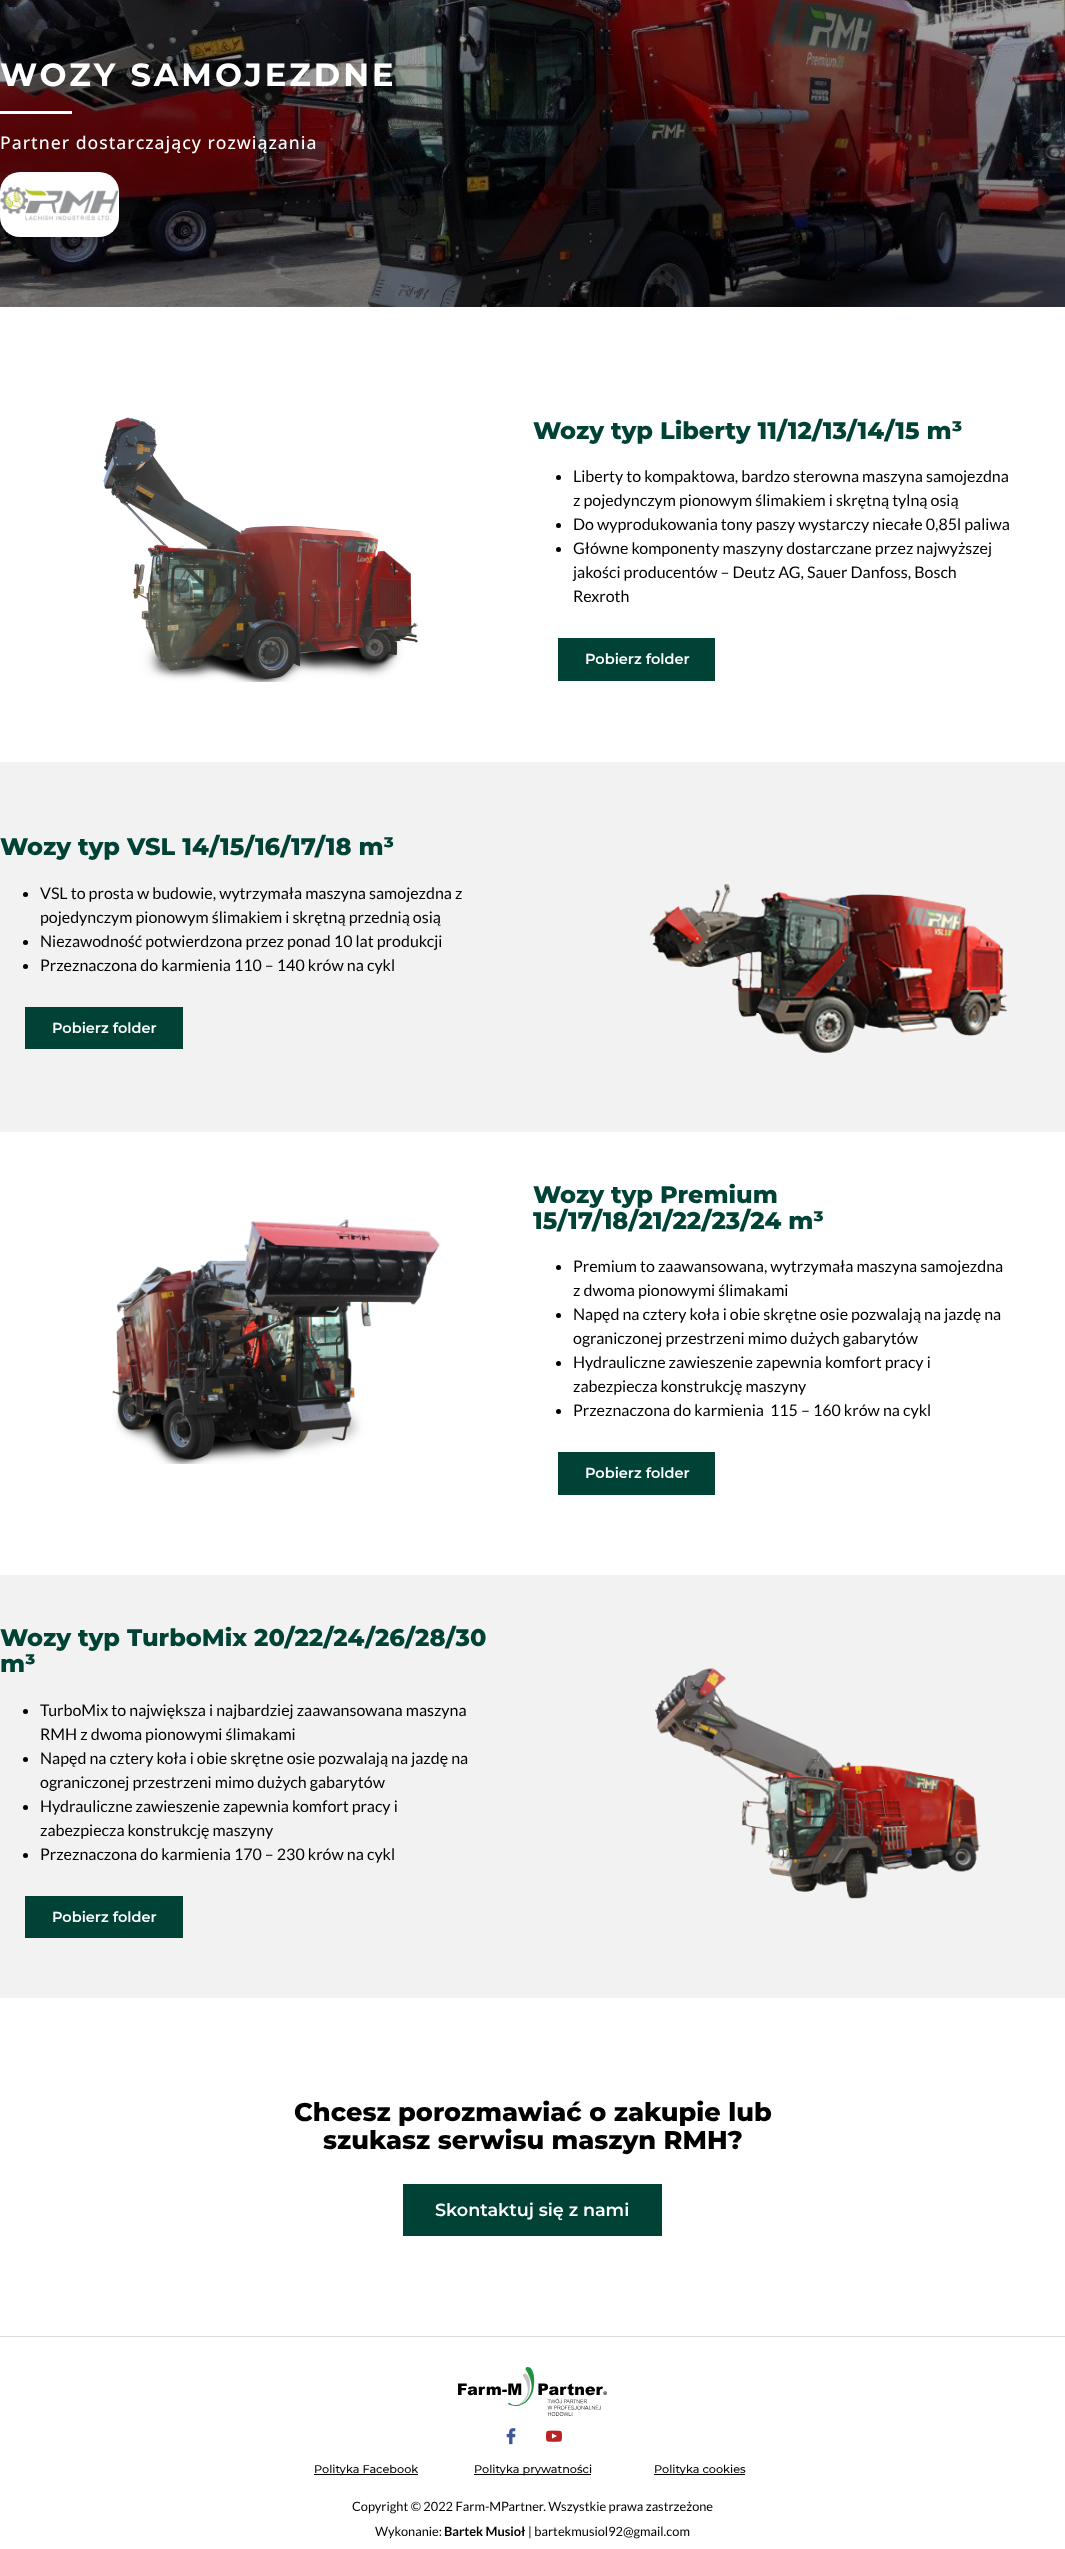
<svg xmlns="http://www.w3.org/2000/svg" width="1065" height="2549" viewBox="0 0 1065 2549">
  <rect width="100%" height="100%" fill="rgb(255,255,255)"/>
  <image x="0" y="0" width="1065" height="307" href="pic1.png"/>
  <text x="0" y="86" font-family="Montserrat" font-size="32" font-weight="bold" letter-spacing="3" fill="rgb(255,255,255)">WOZY SAMOJEZDNE</text>
  <rect x="0" y="111" width="72" height="3" fill="rgb(255,255,255)"/>
  <text x="0" y="149" font-family="Open Sans" font-size="17.6" font-weight="500" letter-spacing="1" fill="rgb(255,255,255)">Partner dostarczający rozwiązania</text>
  <rect x="0" y="172" width="119" height="65" rx="20" fill="rgb(255,255,255)"/>
  <image x="0" y="187" width="119" height="34" href="pic2.png"/>
  <image x="103" y="417" width="315" height="265" href="pic3.png"/>
  <text x="533" y="439" font-family="Montserrat" font-size="24" font-weight="800" fill="rgb(0,66,54)">Wozy typ Liberty 11/12/13/14/15 m³</text>
  <circle cx="558.5" cy="477.5" r="2.5" fill="rgb(0,0,0)"/>
  <g font-family="Lato" font-size="16" fill="rgb(0,0,0)">
    <text>
      <tspan x="573" y="482">Liberty to kompaktowa, bardzo sterowna maszyna samojezdna</tspan>
      <tspan x="573" y="506">z pojedynczym pionowym ślimakiem i skrętną tylną osią</tspan>
    </text>
  </g>
  <circle cx="558.5" cy="525.5" r="2.5" fill="rgb(0,0,0)"/>
  <text x="573" y="530" font-family="Lato" font-size="16" fill="rgb(0,0,0)">Do wyprodukowania tony paszy wystarczy niecałe 0,85l paliwa</text>
  <circle cx="558.5" cy="549.5" r="2.5" fill="rgb(0,0,0)"/>
  <g font-family="Lato" font-size="16" fill="rgb(0,0,0)">
    <text>
      <tspan x="573" y="554">Główne komponenty maszyny dostarczane przez najwyższej</tspan>
      <tspan x="573" y="578">jakości producentów – Deutz AG, Sauer Danfoss, Bosch</tspan>
      <tspan x="573" y="602">Rexroth</tspan>
    </text>
  </g>
  <rect x="558" y="638" width="157" height="43" fill="rgb(0,66,54)"/>
  <text x="585" y="664" font-family="Montserrat" font-size="14.5" font-weight="600" fill="rgb(255,255,255)">Pobierz folder</text>
  <rect x="0" y="762" width="1065" height="370" fill="rgb(242,242,242)"/>
  <text x="0" y="855" font-family="Montserrat" font-size="24" font-weight="800" fill="rgb(0,66,54)">Wozy typ VSL 14/15/16/17/18 m³</text>
  <circle cx="25.5" cy="894.5" r="2.5" fill="rgb(0,0,0)"/>
  <g font-family="Lato" font-size="16" fill="rgb(0,0,0)">
    <text>
      <tspan x="40" y="899">VSL to prosta w budowie, wytrzymała maszyna samojezdna z</tspan>
      <tspan x="40" y="923">pojedynczym pionowym ślimakiem i skrętną przednią osią</tspan>
    </text>
  </g>
  <circle cx="25.5" cy="942.5" r="2.5" fill="rgb(0,0,0)"/>
  <text x="40" y="947" font-family="Lato" font-size="16" fill="rgb(0,0,0)">Niezawodność potwierdzona przez ponad 10 lat produkcji</text>
  <circle cx="25.5" cy="966.5" r="2.5" fill="rgb(0,0,0)"/>
  <text x="40" y="971" font-family="Lato" font-size="16" fill="rgb(0,0,0)">Przeznaczona do karmienia 110 – 140 krów na cykl</text>
  <rect x="25" y="1007" width="158" height="42" fill="rgb(0,66,54)"/>
  <text x="52" y="1033" font-family="Montserrat" font-size="14.5" font-weight="600" fill="rgb(255,255,255)">Pobierz folder</text>
  <image x="649" y="884" width="359" height="170" href="pic4.png"/>
  <image x="112" y="1219" width="328" height="245" href="pic5.png"/>
  <g font-family="Montserrat" font-size="24" font-weight="800" fill="rgb(0,66,54)">
    <text>
      <tspan x="533" y="1203">Wozy typ Premium</tspan>
      <tspan x="533" y="1229">15/17/18/21/22/23/24 m³</tspan>
    </text>
  </g>
  <circle cx="558.5" cy="1267.5" r="2.5" fill="rgb(0,0,0)"/>
  <g font-family="Lato" font-size="16" fill="rgb(0,0,0)">
    <text>
      <tspan x="573" y="1272">Premium to zaawansowana, wytrzymała maszyna samojezdna</tspan>
      <tspan x="573" y="1296">z dwoma pionowymi ślimakami</tspan>
    </text>
  </g>
  <circle cx="558.5" cy="1315.5" r="2.5" fill="rgb(0,0,0)"/>
  <g font-family="Lato" font-size="16" fill="rgb(0,0,0)">
    <text>
      <tspan x="573" y="1320">Napęd na cztery koła i obie skrętne osie pozwalają na jazdę na</tspan>
      <tspan x="573" y="1344">ograniczonej przestrzeni mimo dużych gabarytów</tspan>
    </text>
  </g>
  <circle cx="558.5" cy="1363.5" r="2.5" fill="rgb(0,0,0)"/>
  <g font-family="Lato" font-size="16" fill="rgb(0,0,0)">
    <text>
      <tspan x="573" y="1368">Hydrauliczne zawieszenie zapewnia komfort pracy i</tspan>
      <tspan x="573" y="1392">zabezpiecza konstrukcję maszyny</tspan>
    </text>
  </g>
  <circle cx="558.5" cy="1411.5" r="2.5" fill="rgb(0,0,0)"/>
  <text x="573" y="1416" font-family="Lato" font-size="16" fill="rgb(0,0,0)" xml:space="preserve">Przeznaczona do karmienia  115 – 160 krów na cykl</text>
  <rect x="558" y="1452" width="157" height="43" fill="rgb(0,66,54)"/>
  <text x="585" y="1478" font-family="Montserrat" font-size="14.5" font-weight="600" fill="rgb(255,255,255)">Pobierz folder</text>
  <rect x="0" y="1575" width="1065" height="423" fill="rgb(242,242,242)"/>
  <g font-family="Montserrat" font-size="24" font-weight="800" fill="rgb(0,66,54)">
    <text>
      <tspan x="0" y="1646">Wozy typ TurboMix 20/22/24/26/28/30</tspan>
      <tspan x="0" y="1672">m³</tspan>
    </text>
  </g>
  <circle cx="25.5" cy="1711.5" r="2.5" fill="rgb(0,0,0)"/>
  <g font-family="Lato" font-size="16" fill="rgb(0,0,0)">
    <text>
      <tspan x="40" y="1716">TurboMix to największa i najbardziej zaawansowana maszyna</tspan>
      <tspan x="40" y="1740">RMH z dwoma pionowymi ślimakami</tspan>
    </text>
  </g>
  <circle cx="25.5" cy="1759.5" r="2.5" fill="rgb(0,0,0)"/>
  <g font-family="Lato" font-size="16" fill="rgb(0,0,0)">
    <text>
      <tspan x="40" y="1764">Napęd na cztery koła i obie skrętne osie pozwalają na jazdę na</tspan>
      <tspan x="40" y="1788">ograniczonej przestrzeni mimo dużych gabarytów</tspan>
    </text>
  </g>
  <circle cx="25.5" cy="1807.5" r="2.5" fill="rgb(0,0,0)"/>
  <g font-family="Lato" font-size="16" fill="rgb(0,0,0)">
    <text>
      <tspan x="40" y="1812">Hydrauliczne zawieszenie zapewnia komfort pracy i</tspan>
      <tspan x="40" y="1836">zabezpiecza konstrukcję maszyny</tspan>
    </text>
  </g>
  <circle cx="25.5" cy="1855.5" r="2.5" fill="rgb(0,0,0)"/>
  <text x="40" y="1860" font-family="Lato" font-size="16" fill="rgb(0,0,0)">Przeznaczona do karmienia 170 – 230 krów na cykl</text>
  <rect x="25" y="1896" width="158" height="42" fill="rgb(0,66,54)"/>
  <text x="52" y="1922" font-family="Montserrat" font-size="14.5" font-weight="600" fill="rgb(255,255,255)">Pobierz folder</text>
  <image x="655" y="1668" width="327" height="231" href="pic6.png"/>
  <g font-family="Montserrat" font-size="25.6" font-weight="800" fill="rgb(0,0,0)">
    <text x="294" y="2121">Chcesz porozmawiać o zakupie lub</text>
    <text x="323" y="2149">szukasz serwisu maszyn RMH?</text>
  </g>
  <rect x="403" y="2184" width="259" height="52" fill="rgb(0,66,54)"/>
  <text x="435" y="2216" font-family="Montserrat" font-size="17.6" font-weight="600" fill="rgb(255,255,255)">Skontaktuj się z nami</text>
  <rect x="0" y="2336" width="1065" height="1" fill="rgb(219,219,219)"/>
  <image x="458" y="2367" width="149" height="49" href="pic7.png"/>
  <image x="506" y="2428" width="10" height="17" href="pic8.png"/>
  <image x="546" y="2430" width="16" height="12" href="pic9.png"/>
  <rect x="314" y="2474" width="104" height="1" fill="rgb(0,0,0)"/>
  <text x="314" y="2473" font-family="Montserrat" font-size="11.25" font-weight="500" fill="rgb(0,0,0)">Polityka Facebook</text>
  <rect x="474" y="2474" width="117" height="1" fill="rgb(0,0,0)"/>
  <text x="474" y="2473" font-family="Montserrat" font-size="11.25" font-weight="500" fill="rgb(0,0,0)">Polityka prywatności</text>
  <rect x="654" y="2474" width="91" height="1" fill="rgb(0,0,0)"/>
  <text x="654" y="2473" font-family="Montserrat" font-size="11.25" font-weight="500" fill="rgb(0,0,0)">Polityka cookies</text>
  <g font-family="Lato" font-size="12.8" fill="rgb(0,0,0)">
    <text x="352" y="2511">Copyright © 2022 Farm-MPartner. Wszystkie prawa zastrzeżone</text>
    <text x="375" y="2536">Wykonanie:</text>
  </g>
  <text x="444" y="2536" font-family="Lato" font-size="12.8" font-weight="bold" fill="rgb(0,0,0)">Bartek Musioł</text>
  <text x="528" y="2536" font-family="Lato" font-size="12.8" fill="rgb(0,0,0)">| bartekmusiol92@gmail.com</text>
</svg>
